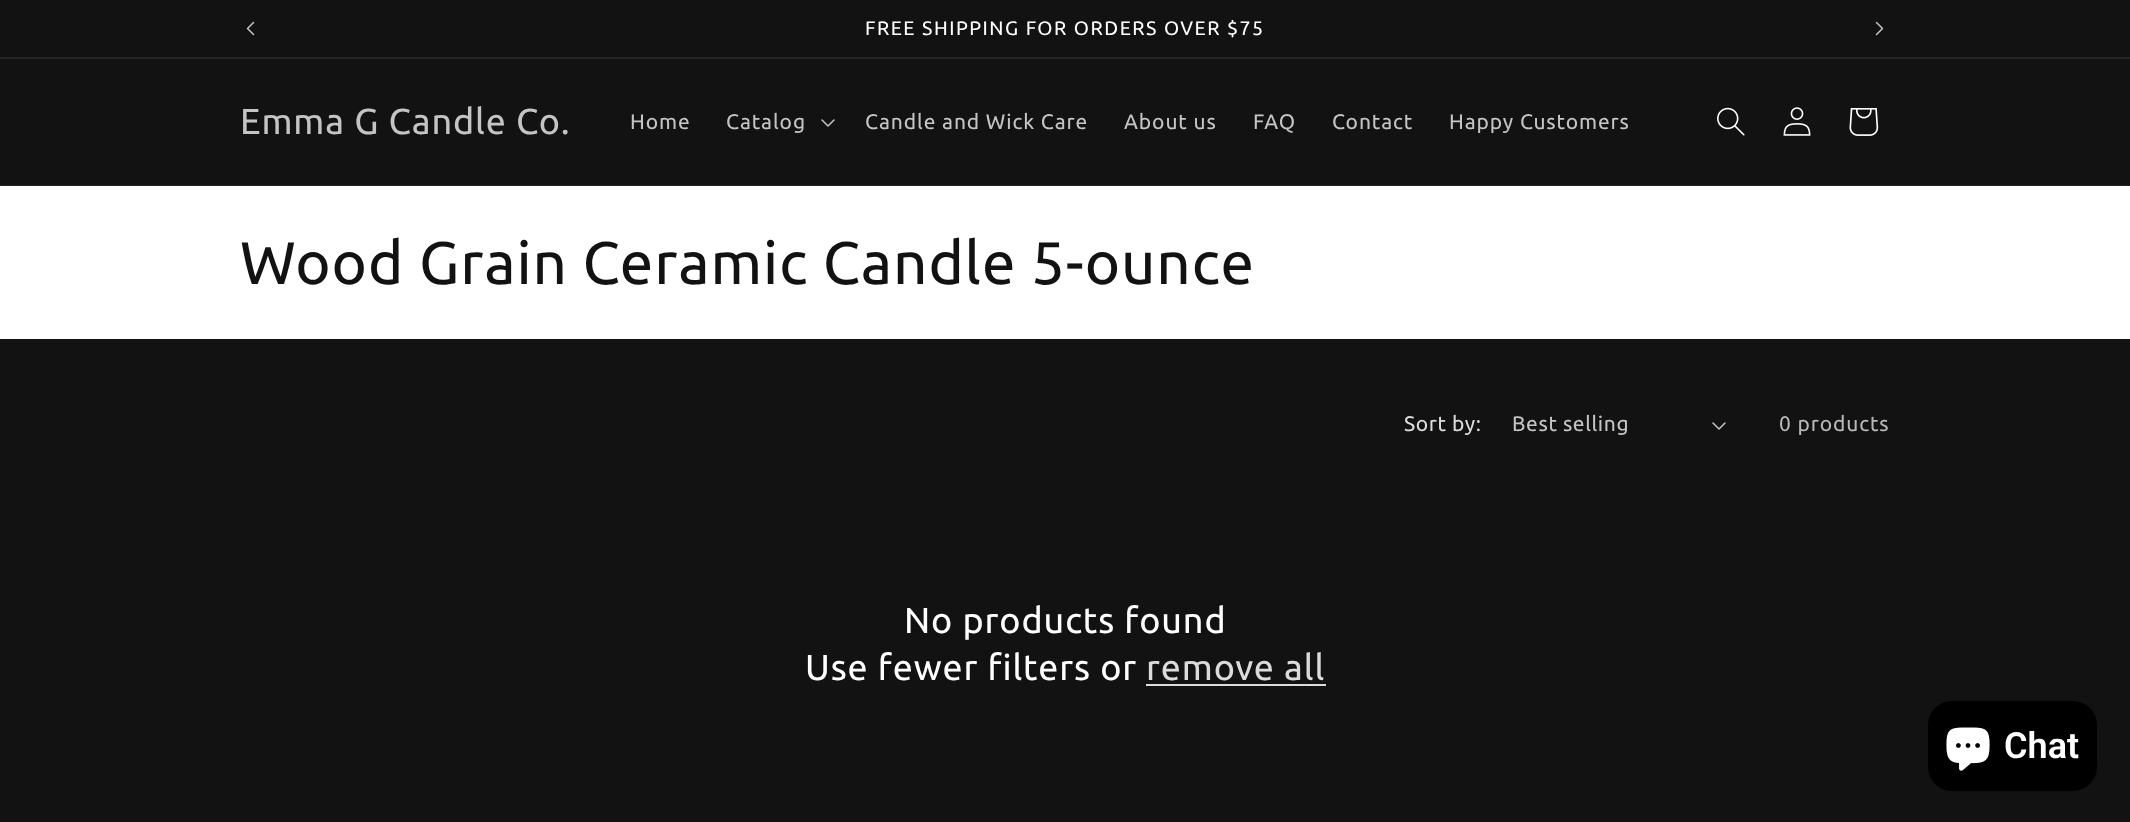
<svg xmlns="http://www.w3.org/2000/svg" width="2130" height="822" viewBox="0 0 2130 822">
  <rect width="100%" height="100%" fill="rgb(18,18,18)"/>
  <rect x="0" y="185" width="2130" height="1" fill="rgb(37,37,37)"/>
  <rect x="0" y="57" width="2130" height="2" fill="rgb(37,37,37)"/>
  <image x="246" y="21" width="9" height="15" href="pic1.png"/>
  <text x="865" y="35" font-family="Ubuntu" font-size="19.5" letter-spacing="1.5" fill="rgb(255,255,255)">FREE SHIPPING FOR ORDERS OVER $75</text>
  <image x="1875" y="21" width="9" height="15" href="pic2.png"/>
  <text x="240" y="134" font-family="Ubuntu" font-size="36" letter-spacing="0.9" fill="rgb(196,196,196)">Emma G Candle Co.</text>
  <g font-family="Ubuntu" font-size="21" letter-spacing="0.9" fill="rgb(196,196,196)">
    <text x="630" y="129">Home</text>
    <text x="726" y="129">Catalog</text>
  </g>
  <image x="821" y="119" width="14" height="8" href="pic3.png"/>
  <g font-family="Ubuntu" font-size="21" letter-spacing="0.9" fill="rgb(196,196,196)">
    <text x="865" y="129">Candle and Wick Care</text>
    <text x="1124" y="129">About us</text>
    <text x="1253" y="129">FAQ</text>
    <text x="1332" y="129">Contact</text>
    <text x="1449" y="129">Happy Customers</text>
  </g>
  <image x="1717" y="107" width="28" height="29" href="pic4.png"/>
  <image x="1783" y="107" width="28" height="29" href="pic5.png"/>
  <image x="1849" y="108" width="30" height="28" href="pic6.png"/>
  <rect x="0" y="186" width="2130" height="153" fill="rgb(255,255,255)"/>
  <text x="240" y="284" font-family="Ubuntu" font-size="60" letter-spacing="0.9" fill="rgb(18,18,18)">Wood Grain Ceramic Candle 5-ounce</text>
  <text x="1404" y="431" font-family="Ubuntu" font-size="21" letter-spacing="0.6" fill="rgb(219,219,219)">Sort by:</text>
  <text x="1512" y="431" font-family="Ubuntu" font-size="21" letter-spacing="0.6" fill="rgb(196,196,196)">Best selling</text>
  <image x="1712" y="422" width="14" height="8" href="pic3.png"/>
  <text x="1779" y="431" font-family="Ubuntu" font-size="21" letter-spacing="0.9" fill="rgb(184,184,184)">0 products</text>
  <g font-family="Ubuntu" font-size="36" letter-spacing="0.9" fill="rgb(255,255,255)">
    <text x="904" y="633">No products found</text>
    <text x="805" y="680">Use fewer filters or</text>
  </g>
  <text x="1146" y="680" font-family="Ubuntu" font-size="36" letter-spacing="0.9" fill="rgb(219,219,219)">remove all</text>
  <rect x="1146" y="684" width="180" height="2" fill="rgb(219,219,219)"/>
  <rect x="1928" y="701" width="169" height="90" rx="24" fill="rgb(0,0,0)"/>
  <image x="1946" y="727" width="44" height="44" href="pic7.png"/>
  <text x="2004" y="758" font-family="Roboto" font-size="36" font-weight="600" fill="rgb(255,255,255)">Chat</text>
</svg>
